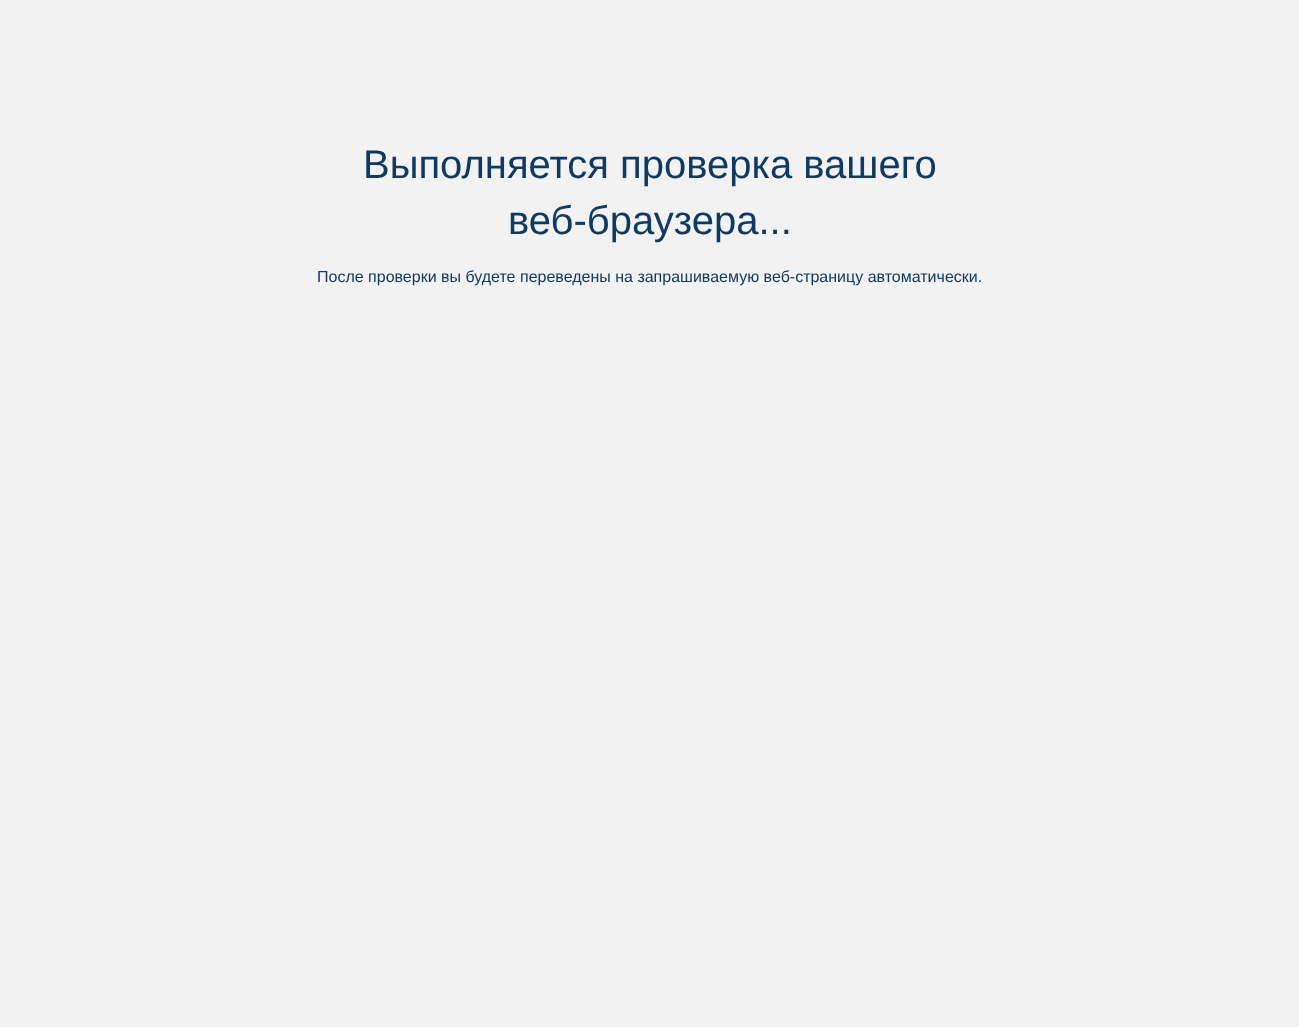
<svg xmlns="http://www.w3.org/2000/svg" width="1299" height="1027" viewBox="0 0 1299 1027">
  <rect width="100%" height="100%" fill="rgb(242,242,242)"/>
  <g font-family="Liberation Sans" font-size="40" fill="rgb(17,58,96)">
    <text x="363" y="178">Выполняется проверка вашего</text>
    <text x="508" y="234">веб-браузера...</text>
  </g>
  <text x="317" y="282" font-family="Liberation Sans" font-size="16" fill="rgb(17,58,96)">После проверки вы будете переведены на запрашиваемую веб-страницу автоматически.</text>
</svg>
